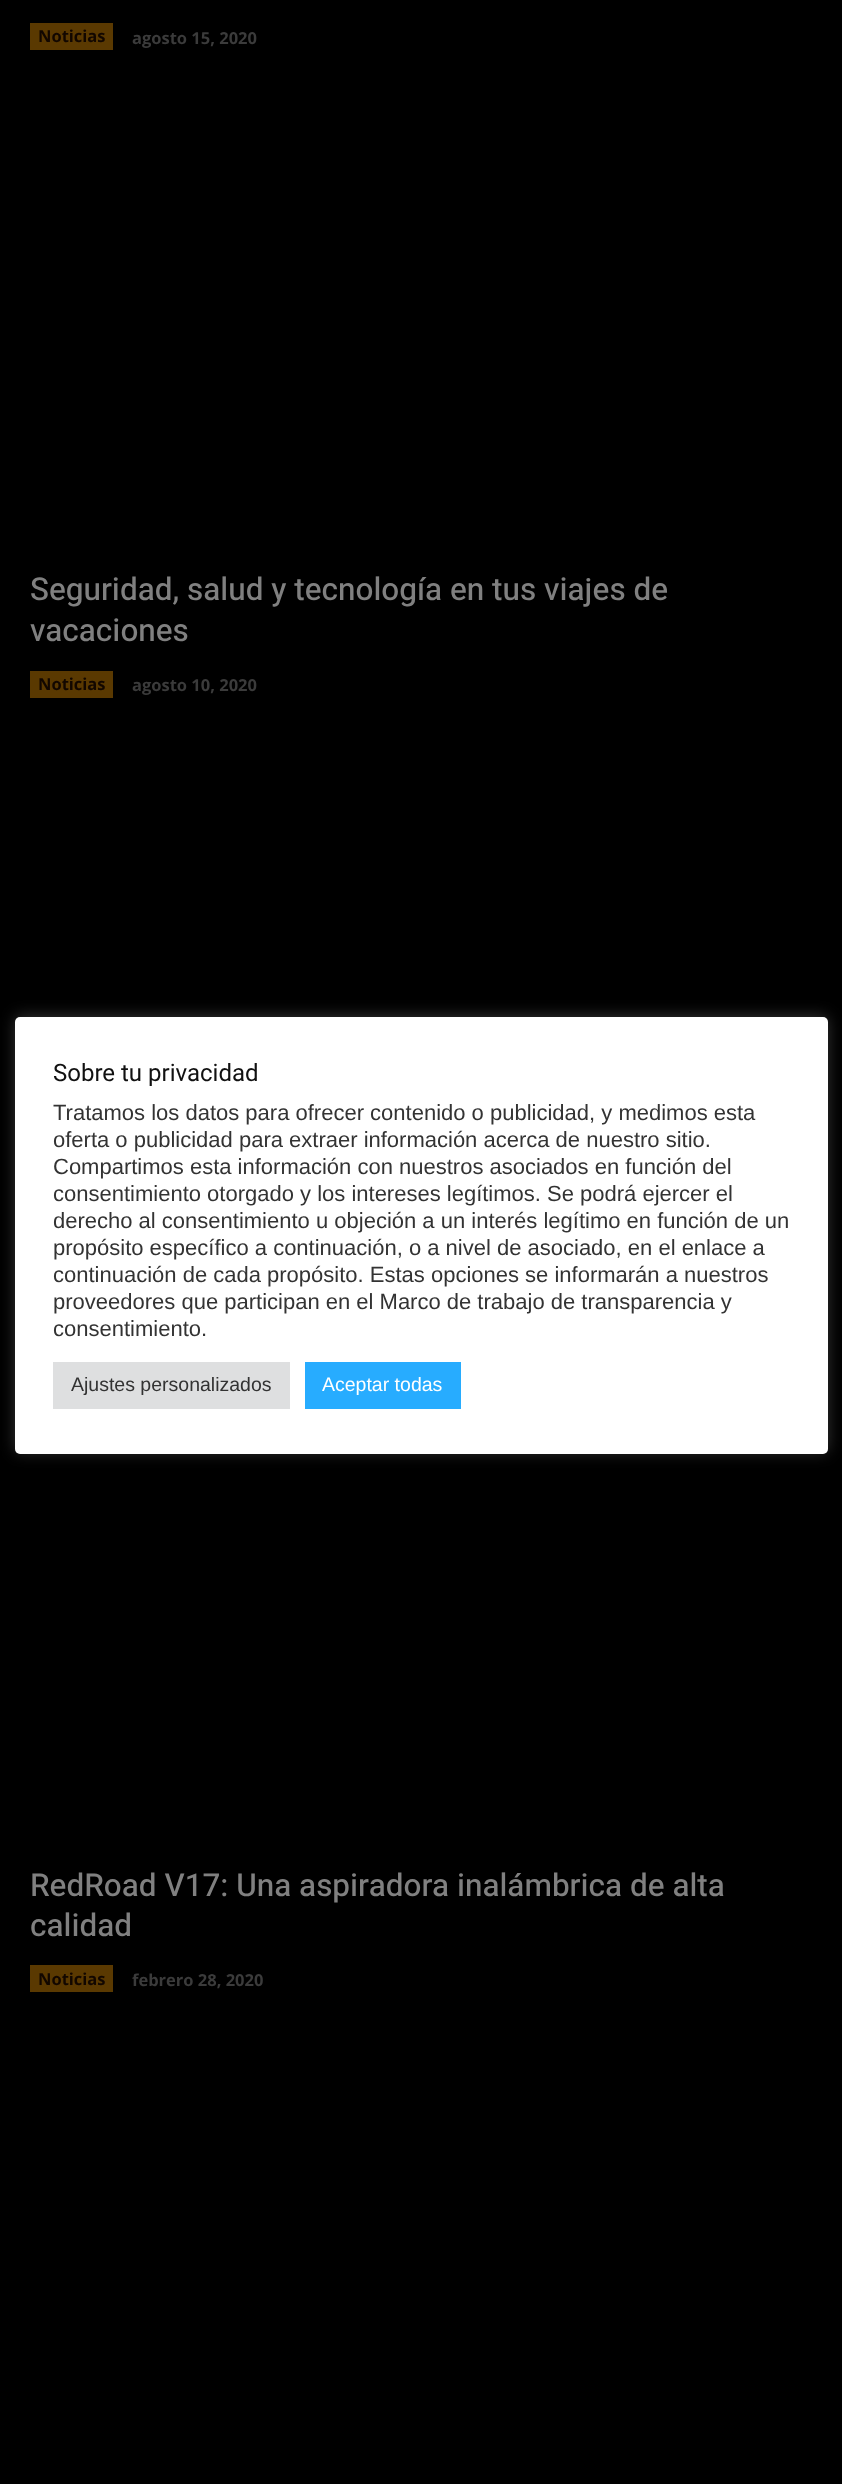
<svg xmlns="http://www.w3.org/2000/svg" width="842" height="2484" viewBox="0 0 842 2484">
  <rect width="100%" height="100%" fill="rgb(0,0,0)"/>
  <rect x="30" y="23" width="83" height="27" fill="rgb(90,57,1)"/>
  <text x="38" y="42" font-family="Open Sans" font-size="16.5" font-weight="bold" fill="rgb(18,7,0)">Noticias</text>
  <text x="132" y="44" font-family="Open Sans" font-size="16.5" font-weight="bold" fill="rgb(59,59,59)">agosto 15, 2020</text>
  <g font-family="Heebo" font-size="31.5" font-weight="500" fill="rgb(128,128,128)">
    <text>
      <tspan x="30" y="600">Seguridad, salud y tecnología en tus viajes de</tspan>
      <tspan x="30" y="641">vacaciones</tspan>
    </text>
  </g>
  <rect x="30" y="671" width="83" height="27" fill="rgb(90,57,1)"/>
  <text x="38" y="690" font-family="Open Sans" font-size="16.5" font-weight="bold" fill="rgb(18,7,0)">Noticias</text>
  <text x="132" y="691" font-family="Open Sans" font-size="16.5" font-weight="bold" fill="rgb(59,59,59)">agosto 10, 2020</text>
  <g font-family="Heebo" font-size="31.5" font-weight="500" fill="rgb(128,128,128)">
    <text>
      <tspan x="30" y="1896">RedRoad V17: Una aspiradora inalámbrica de alta</tspan>
      <tspan x="30" y="1936">calidad</tspan>
    </text>
  </g>
  <rect x="30" y="1965" width="83" height="27" fill="rgb(90,57,1)"/>
  <text x="38" y="1985" font-family="Open Sans" font-size="16.5" font-weight="bold" fill="rgb(18,7,0)">Noticias</text>
  <text x="132" y="1986" font-family="Open Sans" font-size="16.5" font-weight="bold" fill="rgb(59,59,59)">febrero 28, 2020</text>
  <rect x="15" y="1016" width="813" height="436" rx="5" fill="rgba(172,171,171,0.3)" filter="blur(7.5px)"/>
  <rect x="15" y="1017" width="813" height="437" rx="5" fill="rgb(255,255,255)"/>
  <text x="53" y="1081" font-family="Roboto" font-size="24" fill="rgb(17,17,17)">Sobre tu privacidad</text>
  <g font-family="Liberation Sans" font-size="22" fill="rgb(51,51,51)">
    <text>
      <tspan x="53" y="1120">Tratamos los datos para ofrecer contenido o publicidad, y medimos esta</tspan>
      <tspan x="53" y="1147">oferta o publicidad para extraer información acerca de nuestro sitio.</tspan>
      <tspan x="53" y="1174">Compartimos esta información con nuestros asociados en función del</tspan>
      <tspan x="53" y="1201">consentimiento otorgado y los intereses legítimos. Se podrá ejercer el</tspan>
      <tspan x="53" y="1228">derecho al consentimiento u objeción a un interés legítimo en función de un</tspan>
      <tspan x="53" y="1255">propósito específico a continuación, o a nivel de asociado, en el enlace a</tspan>
      <tspan x="53" y="1282">continuación de cada propósito. Estas opciones se informarán a nuestros</tspan>
      <tspan x="53" y="1309">proveedores que participan en el Marco de trabajo de transparencia y</tspan>
      <tspan x="53" y="1336">consentimiento.</tspan>
    </text>
  </g>
  <rect x="53" y="1362" width="237" height="47" fill="rgb(222,223,224)"/>
  <text x="71" y="1391" font-family="Liberation Sans" font-size="19.5" fill="rgb(51,51,51)">Ajustes personalizados</text>
  <rect x="305" y="1362" width="156" height="47" fill="rgb(39,172,255)"/>
  <text x="322" y="1391" font-family="Liberation Sans" font-size="19.5" fill="rgb(255,255,255)">Aceptar todas</text>
</svg>
